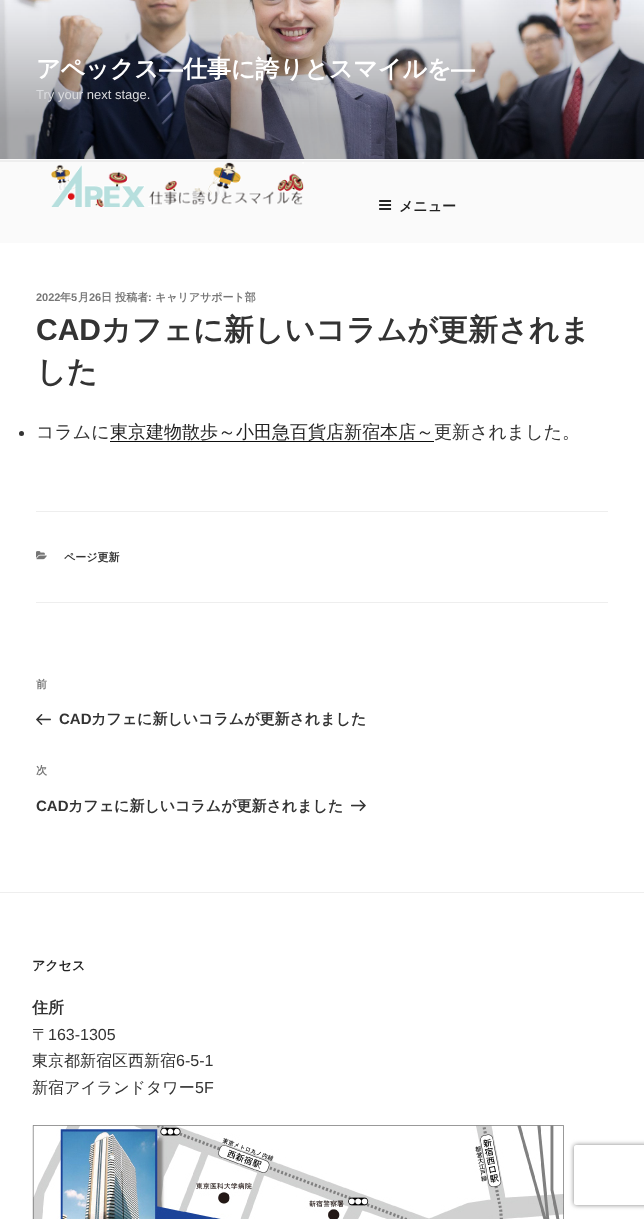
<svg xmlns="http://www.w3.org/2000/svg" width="644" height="1219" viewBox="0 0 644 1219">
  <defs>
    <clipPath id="clip1"><path d="M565 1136H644V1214H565ZM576 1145H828C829 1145 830 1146 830 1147V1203C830 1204 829 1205 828 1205H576C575 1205 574 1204 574 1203V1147C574 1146 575 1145 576 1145Z" clip-rule="evenodd"/></clipPath>
  </defs>
  <rect width="100%" height="100%" fill="rgb(255,255,255)"/>
  <rect x="0" y="159" width="644" height="84" fill="rgb(250,250,250)"/>
  <image x="0" y="0" width="644" height="159" href="pic1.png"/>
  <text x="36" y="77" font-family="WenQuanYi Zen Hei" font-size="24" font-weight="bold" fill="rgb(255,255,255)">アペックス</text>
  <text x="159" y="77" font-family="Liberation Sans" font-size="24" font-weight="bold" fill="rgb(255,255,255)">―</text>
  <text x="183" y="77" font-family="WenQuanYi Zen Hei" font-size="24" font-weight="bold" fill="rgb(255,255,255)">仕事に誇りとスマイルを</text>
  <text x="451" y="77" font-family="Liberation Sans" font-size="24" font-weight="bold" fill="rgb(255,255,255)">―</text>
  <text x="36" y="99" font-family="Liberation Sans" font-size="13" fill="rgb(218,219,222)">Try your next stage.</text>
  <rect x="0" y="160" width="644" height="2" fill="rgb(238,238,238)"/>
  <image x="51" y="162" width="253" height="45" href="pic2.png"/>
  <image x="379" y="200" width="13" height="10" href="pic3.png"/>
  <text x="399" y="211" font-family="WenQuanYi Zen Hei" font-size="14" font-weight="bold" fill="rgb(34,34,34)">メニュー</text>
  <text x="36" y="301" font-family="Liberation Sans" font-size="11" font-weight="bold" fill="rgb(118,118,118)">2022</text>
  <text x="60" y="301" font-family="WenQuanYi Zen Hei" font-size="11" font-weight="bold" fill="rgb(118,118,118)">年</text>
  <text x="71" y="301" font-family="Liberation Sans" font-size="11" font-weight="bold" fill="rgb(118,118,118)">5</text>
  <text x="78" y="301" font-family="WenQuanYi Zen Hei" font-size="11" font-weight="bold" fill="rgb(118,118,118)">月</text>
  <text x="89" y="301" font-family="Liberation Sans" font-size="11" font-weight="bold" fill="rgb(118,118,118)">26</text>
  <text x="101" y="301" font-family="WenQuanYi Zen Hei" font-size="11" font-weight="bold" fill="rgb(118,118,118)">日 投稿者</text>
  <text x="148" y="301" font-family="Liberation Sans" font-size="11" font-weight="bold" fill="rgb(118,118,118)">:</text>
  <text x="155" y="301" font-family="WenQuanYi Zen Hei" font-size="11" font-weight="bold" fill="rgb(118,118,118)">キャリアサポート部</text>
  <text x="36" y="340" font-family="Liberation Sans" font-size="30" font-weight="bold" fill="rgb(51,51,51)">CAD</text>
  <g font-family="WenQuanYi Zen Hei" font-size="30" font-weight="bold" fill="rgb(51,51,51)">
    <text x="101" y="340">カフェに新しいコラムが更新されま</text>
    <text x="36" y="382">した</text>
  </g>
  <circle cx="21.5" cy="433.5" r="2.5" fill="rgb(51,51,51)"/>
  <text x="36" y="438" font-family="WenQuanYi Zen Hei" font-size="18" font-weight="500" fill="rgb(51,51,51)">コラムに</text>
  <rect x="110" y="441" width="324" height="1" fill="rgb(15,15,15)"/>
  <text x="110" y="438" font-family="WenQuanYi Zen Hei" font-size="18" font-weight="500" fill="rgb(34,34,34)">東京建物散歩～小田急百貨店新宿本店～</text>
  <text x="434" y="438" font-family="WenQuanYi Zen Hei" font-size="18" font-weight="500" fill="rgb(51,51,51)">更新されました。</text>
  <rect x="36" y="511" width="572" height="1" fill="rgb(238,238,238)"/>
  <rect x="36" y="602" width="572" height="1" fill="rgb(238,238,238)"/>
  <image x="36" y="551" width="11" height="9" href="pic4.png"/>
  <text x="64" y="561" font-family="WenQuanYi Zen Hei" font-size="11" font-weight="bold" fill="rgb(51,51,51)">ページ更新</text>
  <text x="36" y="688" font-family="WenQuanYi Zen Hei" font-size="11" font-weight="bold" fill="rgb(118,118,118)">前</text>
  <image x="36" y="714" width="15" height="11" href="pic5.png"/>
  <text x="59" y="724" font-family="Liberation Sans" font-size="15" font-weight="bold" fill="rgb(51,51,51)">CAD</text>
  <text x="91" y="724" font-family="WenQuanYi Zen Hei" font-size="15" font-weight="bold" fill="rgb(51,51,51)">カフェに新しいコラムが更新されました</text>
  <text x="36" y="774" font-family="WenQuanYi Zen Hei" font-size="11" font-weight="bold" fill="rgb(118,118,118)">次</text>
  <text x="36" y="811" font-family="Liberation Sans" font-size="15" font-weight="bold" fill="rgb(51,51,51)">CAD</text>
  <text x="68" y="811" font-family="WenQuanYi Zen Hei" font-size="15" font-weight="bold" fill="rgb(51,51,51)">カフェに新しいコラムが更新されました</text>
  <image x="351" y="800" width="15" height="12" href="pic6.png"/>
  <rect x="0" y="892" width="644" height="1" fill="rgb(238,238,238)"/>
  <text x="32" y="970" font-family="WenQuanYi Zen Hei" font-size="13" font-weight="bold" fill="rgb(34,34,34)">アクセス</text>
  <text x="32" y="1013" font-family="WenQuanYi Zen Hei" font-size="16" font-weight="bold" fill="rgb(51,51,51)">住所</text>
  <text x="32" y="1040" font-family="WenQuanYi Zen Hei" font-size="16" font-weight="500" fill="rgb(51,51,51)">〒</text>
  <text x="48" y="1040" font-family="Liberation Sans" font-size="16" fill="rgb(51,51,51)">163-1305</text>
  <text x="32" y="1066" font-family="WenQuanYi Zen Hei" font-size="16" font-weight="500" fill="rgb(51,51,51)">東京都新宿区西新宿</text>
  <text x="176" y="1066" font-family="Liberation Sans" font-size="16" fill="rgb(51,51,51)">6-5-1</text>
  <text x="32" y="1093" font-family="WenQuanYi Zen Hei" font-size="16" font-weight="500" fill="rgb(51,51,51)">新宿アイランドタワー</text>
  <text x="195" y="1093" font-family="Liberation Sans" font-size="16" fill="rgb(51,51,51)">5F</text>
  <image x="32" y="1125" width="532" height="94" href="pic7.png"/>
  <g clip-path="url(#clip1)">
    <rect x="574" y="1145" width="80" height="60" rx="2" fill="rgb(128,128,128)" filter="blur(2.5px)"/>
  </g>
</svg>
